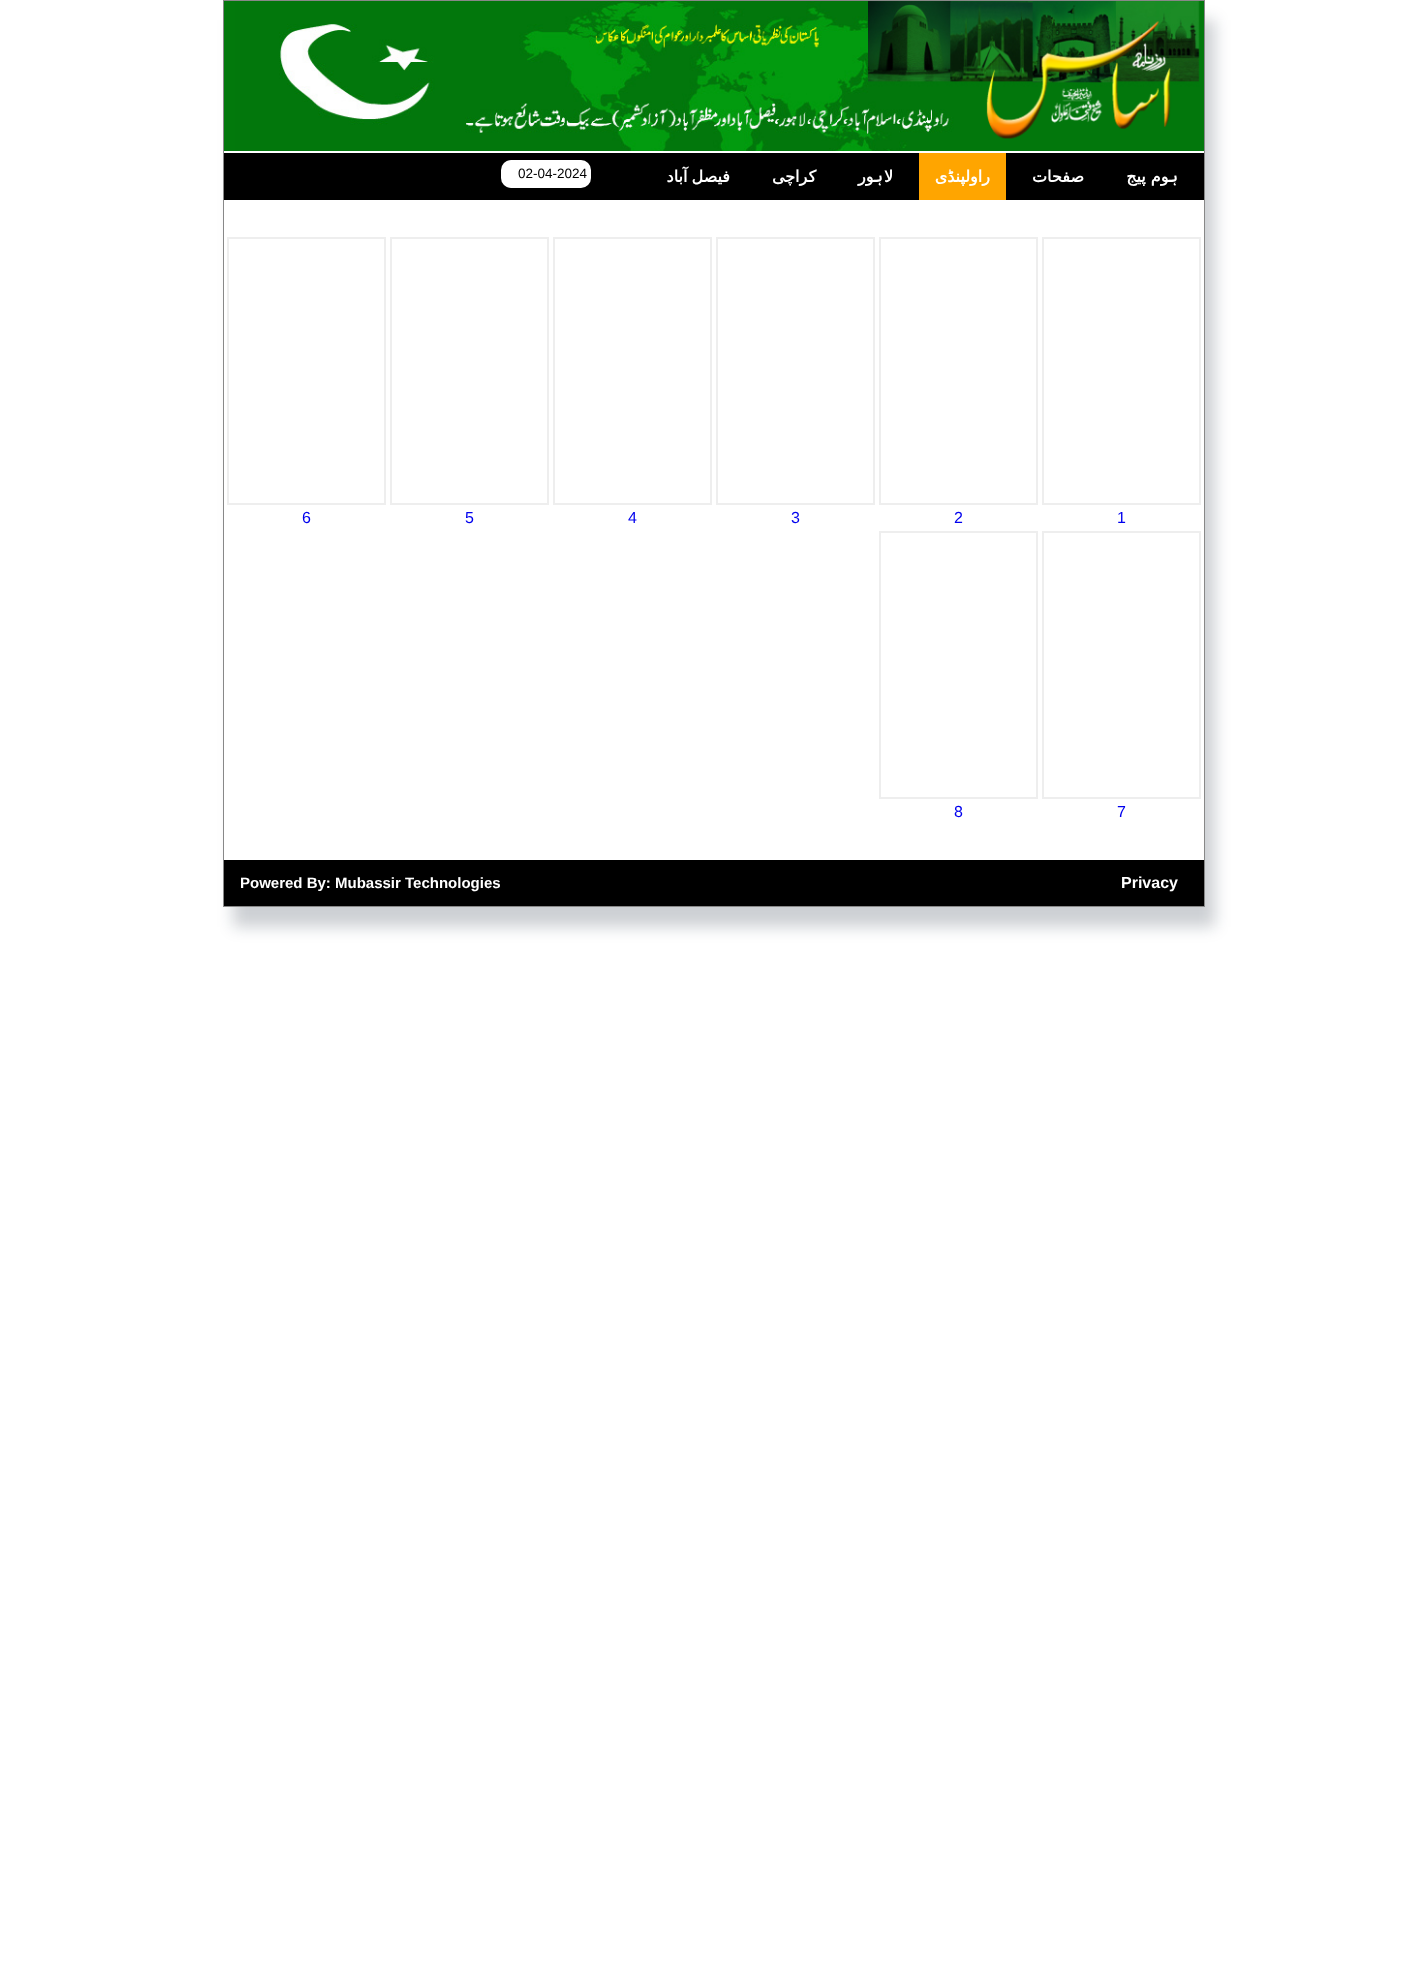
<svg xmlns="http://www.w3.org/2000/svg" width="1427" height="1963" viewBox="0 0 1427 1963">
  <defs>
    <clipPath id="clip1"><path d="M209 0H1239V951H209ZM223 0H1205V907H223Z" clip-rule="evenodd"/></clipPath>
  </defs>
  <rect width="100%" height="100%" fill="rgb(255,255,255)"/>
  <g clip-path="url(#clip1)">
    <rect x="233" y="20" width="982" height="907" fill="rgba(3,20,40,0.2)" filter="blur(7.5px)"/>
  </g>
  <rect x="223.5" y="0.5" width="981" height="906" fill="none" stroke="rgb(136,136,136)"/>
  <image x="224" y="1" width="980" height="150" href="pic1.png"/>
  <rect x="224" y="153" width="980" height="47" fill="rgb(0,0,0)"/>
  <rect x="501" y="160" width="90" height="28" rx="10" fill="rgb(255,255,255)"/>
  <text x="518" y="178" font-family="Liberation Sans" font-size="13.5" fill="rgb(0,0,0)">02-04-2024</text>
  <g font-family="DejaVu Sans" font-size="16" font-weight="bold" direction="rtl" fill="rgb(255,255,255)">
    <text x="730" y="182" word-spacing="-1">فیصل آباد</text>
    <text x="816" y="182">کراچی</text>
    <text x="874" y="182">‍ور</text>
  </g>
  <text x="883" y="182" font-family="Cascadia Code" font-size="16" font-weight="bold" direction="rtl" fill="rgb(255,255,255)">ہ‍</text>
  <text x="893" y="182" font-family="DejaVu Sans" font-size="16" font-weight="bold" direction="rtl" fill="rgb(255,255,255)">لا</text>
  <rect x="919" y="153" width="87" height="47" fill="rgb(255,165,0)"/>
  <g font-family="DejaVu Sans" font-size="16" font-weight="bold" direction="rtl" fill="rgb(255,255,255)">
    <text x="990" y="182">راولپنڈی</text>
    <text x="1084" y="182">صفحات</text>
    <text x="1169" y="182">‍وم پیج</text>
  </g>
  <text x="1178" y="182" font-family="Cascadia Code" font-size="16" font-weight="bold" direction="rtl" fill="rgb(255,255,255)">ہ‍</text>
  <rect x="228" y="238" width="157" height="266" fill="none" stroke="rgb(238,238,238)" stroke-width="2"/>
  <rect x="391" y="238" width="157" height="266" fill="none" stroke="rgb(238,238,238)" stroke-width="2"/>
  <rect x="554" y="238" width="157" height="266" fill="none" stroke="rgb(238,238,238)" stroke-width="2"/>
  <rect x="717" y="238" width="157" height="266" fill="none" stroke="rgb(238,238,238)" stroke-width="2"/>
  <rect x="880" y="238" width="157" height="266" fill="none" stroke="rgb(238,238,238)" stroke-width="2"/>
  <rect x="1043" y="238" width="157" height="266" fill="none" stroke="rgb(238,238,238)" stroke-width="2"/>
  <g font-family="Liberation Sans" font-size="16" fill="rgb(0,0,238)">
    <text x="302" y="523">6</text>
    <text x="465" y="523">5</text>
    <text x="628" y="523">4</text>
    <text x="791" y="523">3</text>
    <text x="954" y="523">2</text>
    <text x="1117" y="523">1</text>
  </g>
  <rect x="880" y="532" width="157" height="266" fill="none" stroke="rgb(238,238,238)" stroke-width="2"/>
  <rect x="1043" y="532" width="157" height="266" fill="none" stroke="rgb(238,238,238)" stroke-width="2"/>
  <g font-family="Liberation Sans" font-size="16" fill="rgb(0,0,238)">
    <text x="954" y="817">8</text>
    <text x="1117" y="817">7</text>
  </g>
  <rect x="224" y="860" width="980" height="46" fill="rgb(0,0,0)"/>
  <text x="240" y="888" font-family="Liberation Sans" font-size="15" font-weight="bold" fill="rgb(255,255,255)">Powered By: Mubassir Technologies</text>
  <text x="1121" y="888" font-family="Liberation Sans" font-size="16" font-weight="bold" fill="rgb(255,255,255)">Privacy</text>
</svg>
